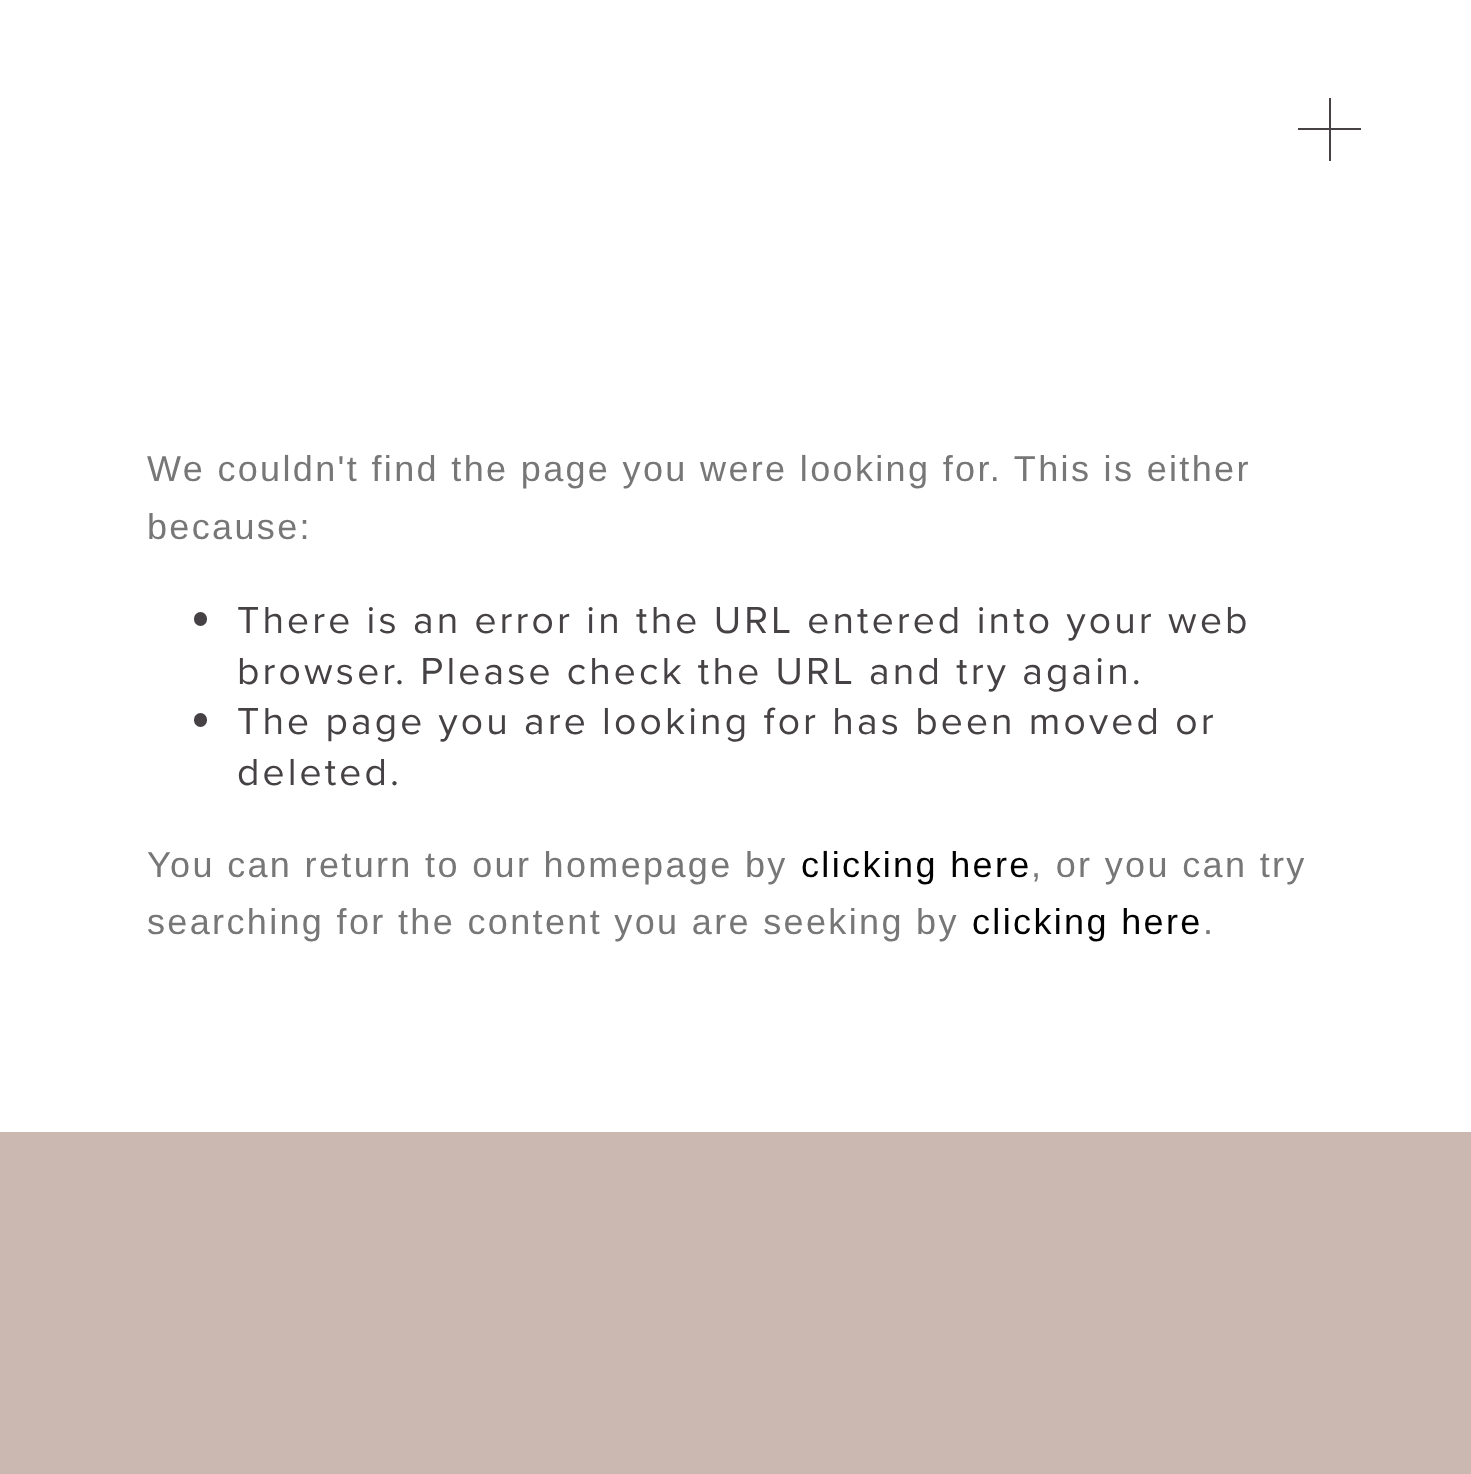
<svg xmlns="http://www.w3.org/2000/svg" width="1471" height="1474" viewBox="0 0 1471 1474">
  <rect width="100%" height="100%" fill="rgb(255,255,255)"/>
  <rect x="1298" y="128" width="63" height="2" fill="rgb(69,65,68)"/>
  <rect x="1329" y="98" width="2" height="63" fill="rgb(69,65,68)"/>
  <g font-family="Liberation Sans" font-size="36" letter-spacing="2.35" fill="rgb(119,119,119)">
    <text>
      <tspan x="147" y="481">We couldn't find the page you were looking for. This is either</tspan>
      <tspan x="147" y="539">because:</tspan>
    </text>
  </g>
  <rect x="194" y="612" width="13" height="14" rx="6.5" fill="rgb(69,65,68)"/>
  <g font-family="Proxima Nova" font-size="39.05" letter-spacing="3.13" fill="rgb(69,65,68)">
    <text>
      <tspan x="237" y="633">There is an error in the URL entered into your web</tspan>
      <tspan x="237" y="684">browser. Please check the URL and try again.</tspan>
    </text>
  </g>
  <rect x="194" y="713" width="13" height="14" rx="6.5" fill="rgb(69,65,68)"/>
  <g font-family="Proxima Nova" font-size="39.05" letter-spacing="3.13" fill="rgb(69,65,68)">
    <text>
      <tspan x="237" y="734">The page you are looking for has been moved or</tspan>
      <tspan x="237" y="785">deleted.</tspan>
    </text>
  </g>
  <text x="147" y="877" font-family="Liberation Sans" font-size="36" letter-spacing="2.35" fill="rgb(119,119,119)">You can return to our homepage by</text>
  <text x="801" y="877" font-family="Liberation Sans" font-size="36" letter-spacing="2.35" fill="rgb(0,0,0)">clicking here</text>
  <g font-family="Liberation Sans" font-size="36" letter-spacing="2.35" fill="rgb(119,119,119)">
    <text x="1031" y="877">, or you can try</text>
    <text x="147" y="934">searching for the content you are seeking by</text>
  </g>
  <text x="972" y="934" font-family="Liberation Sans" font-size="36" letter-spacing="2.35" fill="rgb(0,0,0)">clicking here</text>
  <text x="1203" y="934" font-family="Liberation Sans" font-size="36" letter-spacing="2.35" fill="rgb(119,119,119)">.</text>
  <rect x="0" y="1132" width="1471" height="342" fill="rgb(202,184,177)"/>
</svg>
